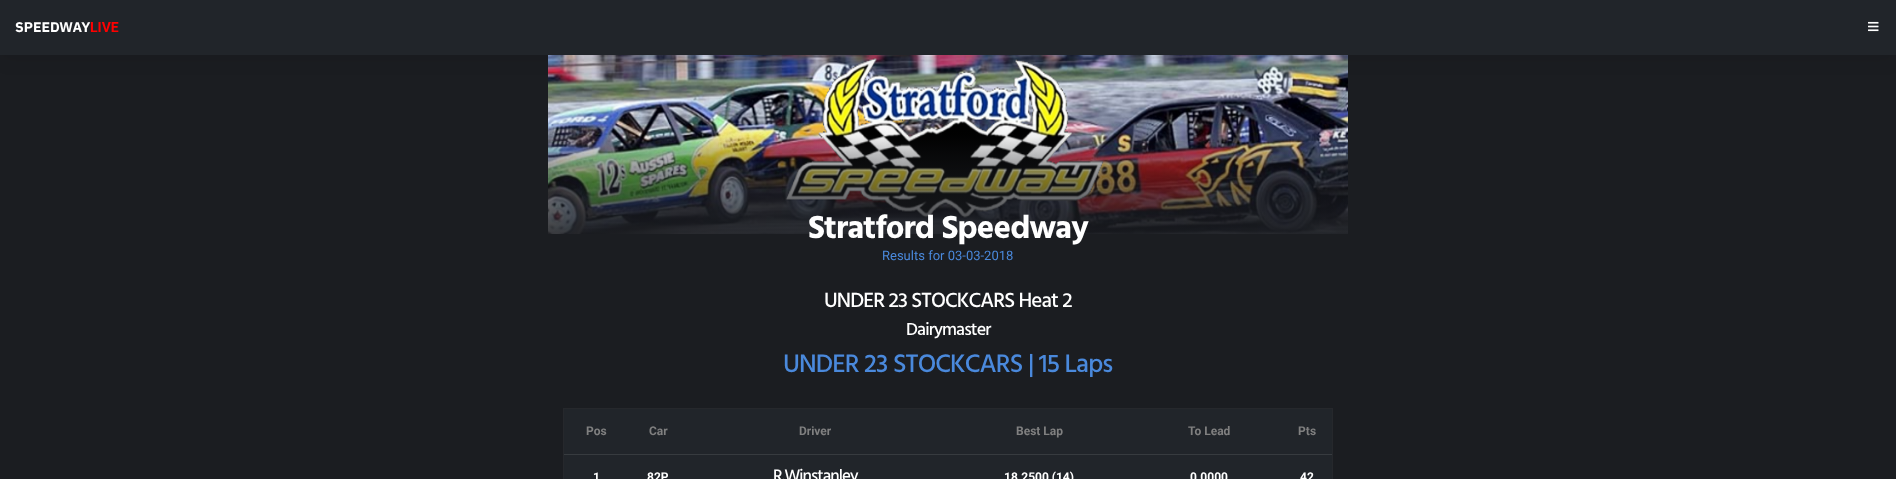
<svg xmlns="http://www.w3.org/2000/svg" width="1896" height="479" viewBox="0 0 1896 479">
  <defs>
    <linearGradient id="g1" gradientUnits="userSpaceOnUse" x1="948" y1="55" x2="948" y2="255"><stop offset="0" stop-color="rgb(27,29,33)" stop-opacity="0"/><stop offset="0.3" stop-color="rgb(27,29,33)" stop-opacity="0"/><stop offset="0.4" stop-color="rgb(27,29,33)" stop-opacity="0.05"/><stop offset="0.5" stop-color="rgb(27,29,33)" stop-opacity="0.3"/><stop offset="0.6" stop-color="rgb(27,29,33)" stop-opacity="0.5"/><stop offset="1" stop-color="rgb(27,29,33)"/></linearGradient>
  </defs>
  <rect width="100%" height="100%" fill="rgb(27,29,33)"/>
  <image x="548" y="55" width="800" height="179" href="pic2.png"/>
  <rect x="0" y="4" width="1896" height="55" fill="rgba(0,0,0,0.08)" filter="blur(9px)"/>
  <rect x="0" y="0" width="1896" height="55" fill="rgb(33,37,42)"/>
  <text x="15" y="32" font-family="IBM Plex Sans" font-size="14" font-weight="bold" fill="rgb(255,255,255)">SPEEDWAY</text>
  <text x="90" y="32" font-family="Roboto" font-size="14" font-weight="bold" fill="rgb(255,0,0)">LIVE</text>
  <image x="1868" y="21" width="11" height="11" href="pic1.png"/>
  <rect x="548" y="124" width="800" height="110" fill="url(#g1)"/>
  <text x="808" y="238" font-family="Hind" font-size="33" font-weight="bold" letter-spacing="-0.9" fill="rgb(255,255,255)">Stratford Speedway</text>
  <text x="882" y="260" font-family="Roboto" font-size="13" fill="rgb(74,137,220)">Results for 03-03-2018</text>
  <text x="824" y="307" font-family="Hind" font-size="21" font-weight="500" letter-spacing="-0.9" fill="rgb(255,255,255)">UNDER 23 STOCKCARS Heat 2</text>
  <text x="906" y="335" font-family="Hind" font-size="18" font-weight="500" letter-spacing="-0.9" fill="rgb(255,255,255)">Dairymaster</text>
  <text x="783" y="372" font-family="Hind" font-size="26" font-weight="500" letter-spacing="-0.9" fill="rgb(74,137,220)">UNDER 23 STOCKCARS | 15 Laps</text>
  <rect x="563.5" y="408.5" width="769" height="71" fill="none" stroke="rgb(38,40,44)"/>
  <rect x="564" y="409" width="768" height="45" fill="rgb(33,37,42)"/>
  <rect x="564" y="454" width="768" height="1" fill="rgb(55,59,63)"/>
  <g font-family="Roboto" font-size="12" font-weight="bold" fill="rgb(128,128,128)">
    <text x="586" y="435">Pos</text>
    <text x="649" y="435">Car</text>
    <text x="799" y="435">Driver</text>
    <text x="1016" y="435">Best Lap</text>
    <text x="1188" y="435">To Lead</text>
    <text x="1298" y="435">Pts</text>
  </g>
  <rect x="564" y="455" width="768" height="24" fill="rgb(33,37,42)"/>
  <g font-family="Roboto" font-size="12" font-weight="bold" fill="rgb(255,255,255)">
    <text x="593" y="481">1</text>
    <text x="647" y="481">82P</text>
  </g>
  <text x="773" y="481" font-family="Hind" font-size="17" font-weight="500" letter-spacing="-0.9" fill="rgb(255,255,255)">R.Winstanley</text>
  <g font-family="Roboto" font-size="12" font-weight="bold" fill="rgb(255,255,255)">
    <text x="1004" y="481">18.2500 (14)</text>
    <text x="1190" y="481">0.0000</text>
    <text x="1300" y="481">42</text>
  </g>
</svg>
